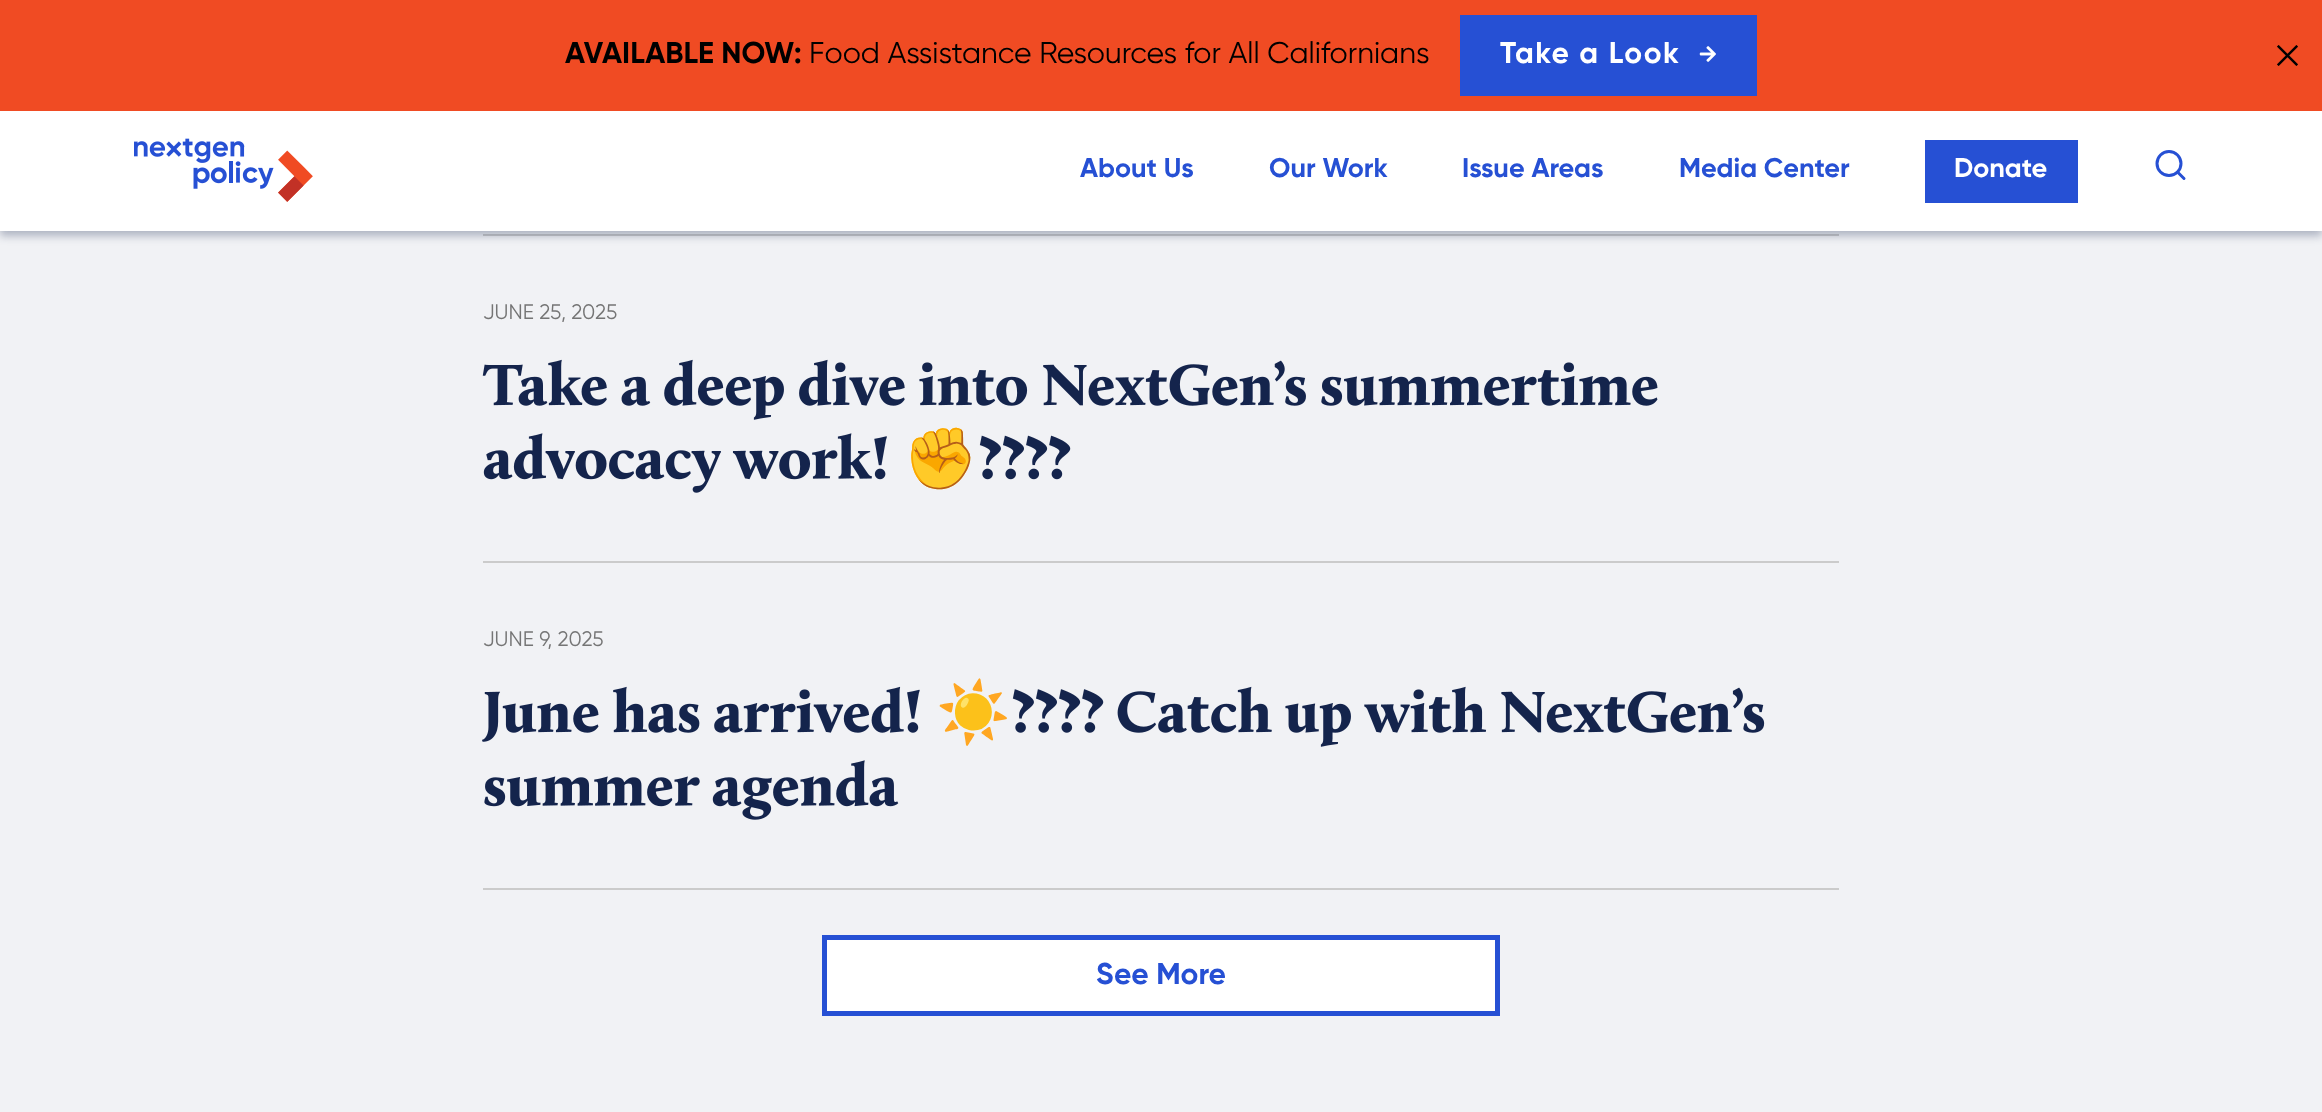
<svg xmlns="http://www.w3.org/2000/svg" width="2322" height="1112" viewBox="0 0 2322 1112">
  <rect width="100%" height="100%" fill="rgb(241,242,245)"/>
  <rect x="483" y="234" width="1356" height="2" fill="rgb(203,203,203)"/>
  <rect x="0" y="116" width="2322" height="120" fill="rgba(20,36,76,0.3)" filter="blur(4.5px)"/>
  <rect x="0" y="0" width="2322" height="111" fill="rgb(240,75,35)"/>
  <text x="565" y="63" font-family="'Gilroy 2'" font-size="30" fill="rgb(0,0,0)">AVAILABLE NOW:</text>
  <text x="809" y="63" font-family="Gilroy" font-size="30" fill="rgb(0,0,0)">Food Assistance Resources for All Californians</text>
  <rect x="1460" y="15" width="297" height="81" fill="rgb(38,80,212)"/>
  <text x="1500" y="63" font-family="'Gilroy 2'" font-size="30" letter-spacing="1.5" fill="rgb(255,255,255)">Take a Look</text>
  <image x="1699" y="46" width="17" height="16" href="pic1.png"/>
  <image x="2277" y="45" width="21" height="21" href="pic2.png"/>
  <rect x="0" y="111" width="2322" height="120" fill="rgb(255,255,255)"/>
  <image x="134" y="138" width="179" height="64" href="pic3.png"/>
  <g font-family="'Gilroy 2'" font-size="27" fill="rgb(38,80,212)">
    <text x="1080" y="177">About Us</text>
    <text x="1269" y="177">Our Work</text>
    <text x="1462" y="177">Issue Areas</text>
    <text x="1679" y="177">Media Center</text>
  </g>
  <rect x="1925" y="140" width="153" height="63" fill="rgb(38,80,212)"/>
  <text x="1954" y="177" font-family="'Gilroy 2'" font-size="27" fill="rgb(255,255,255)">Donate</text>
  <circle cx="2169" cy="163.5" r="12" fill="none" stroke="rgb(38,80,212)" stroke-width="3"/>
  <path d="M2184 178.5L2177.5 172" fill="none" stroke="rgb(38,80,212)" stroke-width="3" stroke-linecap="round" stroke-linejoin="round"/>
  <rect x="483" y="561" width="1356" height="2" fill="rgb(203,203,203)"/>
  <text x="483" y="319" font-family="Gilroy" font-size="21" fill="rgb(117,117,117)">JUNE 25, 2025</text>
  <image x="482" y="359" width="1176" height="61" href="pic4.png"/>
  <image x="483" y="433" width="404" height="60" href="pic5.png"/>
  <text x="903" y="479" font-family="Noto Color Emoji" font-size="60" fill="rgb(20,36,76)">✊</text>
  <image x="979" y="435" width="92" height="45" href="pic6.png"/>
  <rect x="483" y="888" width="1356" height="2" fill="rgb(203,203,203)"/>
  <text x="483" y="646" font-family="Gilroy" font-size="21" fill="rgb(117,117,117)">JUNE 9, 2025</text>
  <image x="482" y="686" width="438" height="56" href="pic7.png"/>
  <text x="936" y="733" font-family="Noto Color Emoji" font-size="60" fill="rgb(20,36,76)">☀️</text>
  <image x="1012" y="686" width="753" height="61" href="pic8.png"/>
  <image x="484" y="760" width="415" height="60" href="pic9.png"/>
  <rect x="824.5" y="937.5" width="673" height="76" fill="rgb(255,255,255)" stroke="rgb(38,80,212)" stroke-width="5"/>
  <text x="1096" y="984" font-family="'Gilroy 2'" font-size="30" fill="rgb(38,80,212)">See More</text>
</svg>
